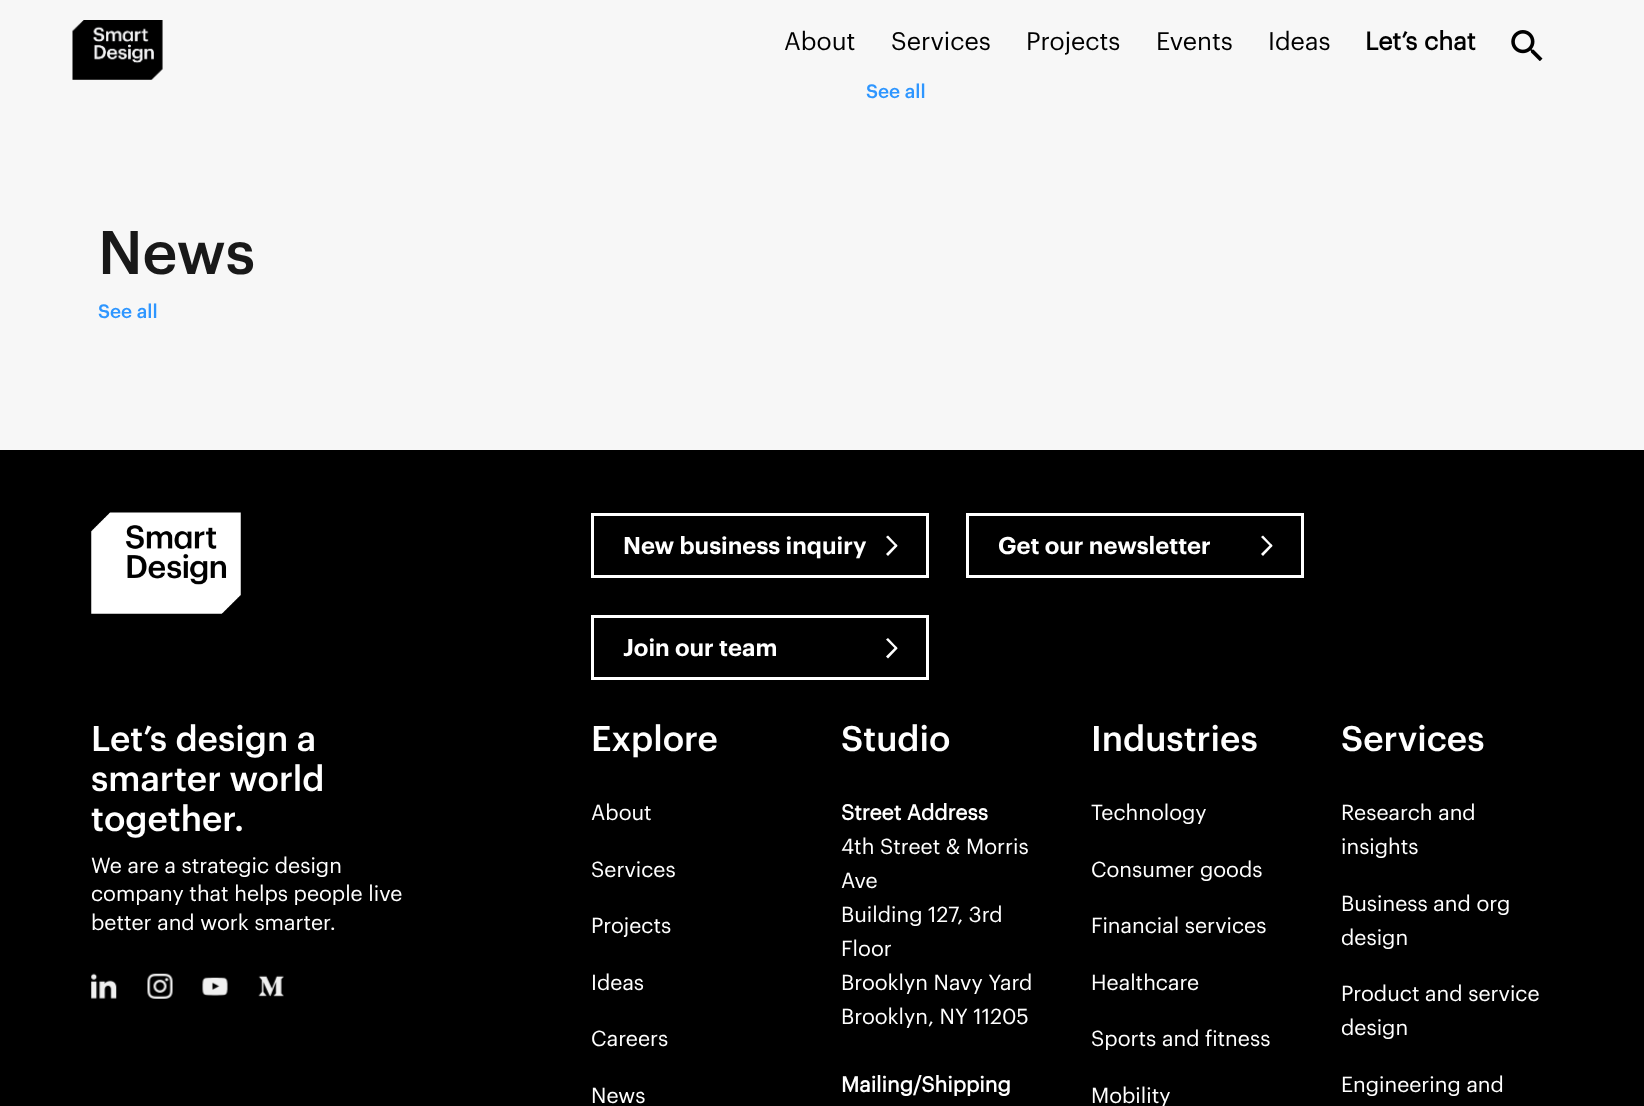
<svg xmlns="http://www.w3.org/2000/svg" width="1644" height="1106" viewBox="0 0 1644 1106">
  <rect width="100%" height="100%" fill="rgb(247,247,247)"/>
  <image x="72" y="20" width="91" height="60" href="pic1.png"/>
  <g font-family="Graphik" font-size="25" fill="rgb(0,0,0)">
    <text x="784" y="50">About</text>
    <text x="891" y="50">Services</text>
    <text x="1026" y="50">Projects</text>
    <text x="1156" y="50">Events</text>
    <text x="1268" y="50">Ideas</text>
  </g>
  <text x="1365" y="50" font-family="Graphik" font-size="25" font-weight="bold" fill="rgb(0,0,0)">Let’s chat</text>
  <image x="1511" y="30" width="32" height="31" href="pic2.png"/>
  <text x="866" y="98" font-family="Graphik" font-size="19" font-weight="500" fill="rgb(46,150,255)">See all</text>
  <text x="98" y="274" font-family="Graphik" font-size="60" font-weight="500" fill="rgb(25,25,25)">News</text>
  <text x="98" y="318" font-family="Graphik" font-size="19" font-weight="500" fill="rgb(46,150,255)">See all</text>
  <rect x="0" y="450" width="1644" height="656" fill="rgb(0,0,0)"/>
  <image x="91" y="512" width="150" height="102" href="pic3.png"/>
  <rect x="592.5" y="514.5" width="335" height="62" fill="none" stroke="rgb(255,255,255)" stroke-width="3"/>
  <text x="623" y="554" font-family="Graphik" font-size="23.75" font-weight="600" fill="rgb(255,255,255)">New business inquiry</text>
  <path d="M888 535.5L897.5 545.5L896 547L886 537Z" fill="rgb(255,255,255)"/>
  <path d="M886 554L896 544L897.5 546L888 556Z" fill="rgb(255,255,255)"/>
  <rect x="967.5" y="514.5" width="335" height="62" fill="none" stroke="rgb(255,255,255)" stroke-width="3"/>
  <text x="998" y="554" font-family="Graphik" font-size="23.75" font-weight="600" fill="rgb(255,255,255)">Get our newsletter</text>
  <path d="M1263 535.5L1272.5 545.5L1271 547L1261 537Z" fill="rgb(255,255,255)"/>
  <path d="M1261 554L1271 544L1272.5 546L1263 556Z" fill="rgb(255,255,255)"/>
  <rect x="592.5" y="616.5" width="335" height="62" fill="none" stroke="rgb(255,255,255)" stroke-width="3"/>
  <text x="623" y="656" font-family="Graphik" font-size="23.75" font-weight="600" fill="rgb(255,255,255)">Join our team</text>
  <path d="M888 638L897.5 648L896 649.5L886 639.5Z" fill="rgb(255,255,255)"/>
  <path d="M886 656.5L896 646.5L897.5 648.5L888 658.5Z" fill="rgb(255,255,255)"/>
  <g font-family="Graphik" font-size="35" font-weight="500" fill="rgb(255,255,255)">
    <text>
      <tspan x="91" y="751">Let’s design a</tspan>
      <tspan x="91" y="791">smarter world</tspan>
      <tspan x="91" y="831">together.</tspan>
    </text>
  </g>
  <g font-family="Graphik" font-size="21.25" fill="rgb(255,255,255)">
    <text>
      <tspan x="91" y="873">We are a strategic design</tspan>
      <tspan x="91" y="901">company that helps people live</tspan>
      <tspan x="91" y="930">better and work smarter.</tspan>
    </text>
  </g>
  <image x="91" y="973" width="26" height="26" href="pic4.png"/>
  <image x="147" y="973" width="26" height="26" href="pic5.png"/>
  <image x="202" y="977" width="26" height="19" href="pic6.png"/>
  <image x="258" y="975" width="26" height="22" href="pic7.png"/>
  <text x="591" y="751" font-family="Graphik" font-size="35" font-weight="500" fill="rgb(255,255,255)">Explore</text>
  <g font-family="Graphik" font-size="21.25" fill="rgb(255,255,255)">
    <text x="591" y="820">About</text>
    <text x="591" y="877">Services</text>
    <text x="591" y="933">Projects</text>
    <text x="591" y="990">Ideas</text>
    <text x="591" y="1046">Careers</text>
    <text x="591" y="1103">News</text>
  </g>
  <text x="841" y="751" font-family="Graphik" font-size="35" font-weight="500" fill="rgb(255,255,255)">Studio</text>
  <text x="841" y="820" font-family="Graphik" font-size="21.25" font-weight="bold" fill="rgb(255,255,255)">Street Address</text>
  <g font-family="Graphik" font-size="21.25" fill="rgb(255,255,255)">
    <text>
      <tspan x="841" y="854">4th Street &amp; Morris</tspan>
      <tspan x="841" y="888">Ave</tspan>
      <tspan x="841" y="922">Building 127, 3rd</tspan>
      <tspan x="841" y="956">Floor</tspan>
      <tspan x="841" y="990">Brooklyn Navy Yard</tspan>
      <tspan x="841" y="1024">Brooklyn, NY 11205</tspan>
    </text>
  </g>
  <text x="841" y="1092" font-family="Graphik" font-size="21.25" font-weight="bold" fill="rgb(255,255,255)">Mailing/Shipping</text>
  <text x="1091" y="751" font-family="Graphik" font-size="35" font-weight="500" fill="rgb(255,255,255)">Industries</text>
  <g font-family="Graphik" font-size="21.25" fill="rgb(255,255,255)">
    <text x="1091" y="820">Technology</text>
    <text x="1091" y="877">Consumer goods</text>
    <text x="1091" y="933">Financial services</text>
    <text x="1091" y="990">Healthcare</text>
    <text x="1091" y="1046">Sports and fitness</text>
    <text x="1091" y="1103">Mobility</text>
  </g>
  <text x="1341" y="751" font-family="Graphik" font-size="35" font-weight="500" fill="rgb(255,255,255)">Services</text>
  <g font-family="Graphik" font-size="21.25" fill="rgb(255,255,255)">
    <text>
      <tspan x="1341" y="820">Research and</tspan>
      <tspan x="1341" y="854">insights</tspan>
    </text>
    <text>
      <tspan x="1341" y="911">Business and org</tspan>
      <tspan x="1341" y="945">design</tspan>
    </text>
    <text>
      <tspan x="1341" y="1001">Product and service</tspan>
      <tspan x="1341" y="1035">design</tspan>
    </text>
    <text x="1341" y="1092">Engineering and</text>
  </g>
</svg>
